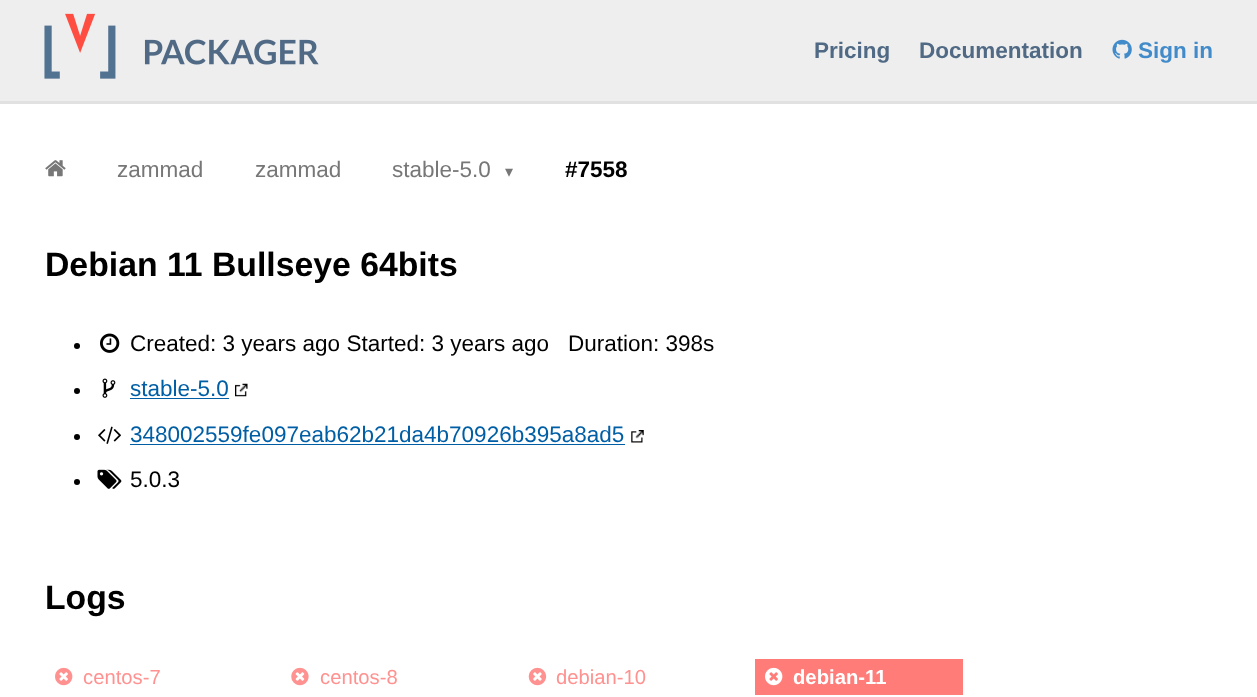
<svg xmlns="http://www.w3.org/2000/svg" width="1257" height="697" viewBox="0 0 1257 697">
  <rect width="100%" height="100%" fill="rgb(238,238,238)"/>
  <rect x="0" y="101" width="1257" height="3" fill="rgb(225,225,225)"/>
  <image x="44" y="13" width="275" height="66" href="pic1.png"/>
  <g font-family="Liberation Sans" font-size="22.5" font-weight="bold" fill="rgb(80,106,133)">
    <text x="814" y="58">Pricing</text>
    <text x="919" y="58">Documentation</text>
  </g>
  <image x="1112" y="39" width="20" height="20" href="pic2.png"/>
  <text x="1138" y="58" font-family="Liberation Sans" font-size="22.5" font-weight="bold" fill="rgb(66,139,202)">Sign in</text>
  <rect x="0" y="104" width="1257" height="593" fill="rgb(255,255,255)"/>
  <image x="45" y="160" width="21" height="17" href="pic3.png"/>
  <g font-family="Liberation Sans" font-size="22.5" fill="rgb(119,119,119)">
    <text x="117" y="177">zammad</text>
    <text x="255" y="177">zammad</text>
    <text x="392" y="177">stable-5.0</text>
  </g>
  <text x="505" y="177" font-family="DejaVu Sans" font-size="16" fill="rgb(119,119,119)">▾</text>
  <text x="565" y="177" font-family="Liberation Sans" font-size="22.5" font-weight="bold" fill="rgb(0,0,0)">#7558</text>
  <text x="45" y="276" font-family="Liberation Sans" font-size="33.75" font-weight="bold" fill="rgb(0,0,0)">Debian 11 Bullseye 64bits</text>
  <circle cx="77" cy="346" r="3" fill="rgb(0,0,0)"/>
  <image x="100" y="333" width="20" height="20" href="pic4.png"/>
  <g font-family="Liberation Sans" font-size="22.5" fill="rgb(0,0,0)">
    <text x="130" y="351">Created: 3 years ago Started: 3 years ago</text>
    <text x="568" y="351">Duration: 398s</text>
  </g>
  <circle cx="77" cy="391" r="3" fill="rgb(0,0,0)"/>
  <image x="102" y="378" width="14" height="20" href="pic5.png"/>
  <text x="130" y="396" font-family="Liberation Sans" font-size="22.5" fill="rgb(0,94,165)">stable-5.0</text>
  <rect x="130" y="398" width="99" height="1" fill="rgb(0,94,165)"/>
  <image x="235" y="383" width="13" height="14" href="pic6.png"/>
  <circle cx="77" cy="437" r="3" fill="rgb(0,0,0)"/>
  <image x="98" y="426" width="23" height="18" href="pic7.png"/>
  <text x="130" y="442" font-family="Liberation Sans" font-size="22.5" fill="rgb(0,94,165)">348002559fe097eab62b21da4b70926b395a8ad5</text>
  <rect x="130" y="444" width="495" height="1" fill="rgb(0,94,165)"/>
  <image x="631" y="430" width="13" height="13" href="pic8.png"/>
  <circle cx="77" cy="482" r="3" fill="rgb(0,0,0)"/>
  <image x="97" y="469" width="25" height="20" href="pic9.png"/>
  <text x="130" y="487" font-family="Liberation Sans" font-size="22.5" fill="rgb(0,0,0)">5.0.3</text>
  <text x="45" y="609" font-family="Liberation Sans" font-size="33.75" font-weight="bold" fill="rgb(0,0,0)">Logs</text>
  <image x="55" y="667" width="18" height="19" href="pic10.png"/>
  <text x="83" y="684" font-family="Liberation Sans" font-size="20.25" fill="rgb(255,146,144)">centos-7</text>
  <image x="291" y="667" width="18" height="19" href="pic11.png"/>
  <text x="320" y="684" font-family="Liberation Sans" font-size="20.25" fill="rgb(255,146,144)">centos-8</text>
  <image x="528" y="667" width="19" height="19" href="pic12.png"/>
  <text x="556" y="684" font-family="Liberation Sans" font-size="20.25" fill="rgb(255,146,144)">debian-10</text>
  <rect x="755" y="659" width="208" height="36" fill="rgb(255,124,121)"/>
  <image x="765" y="667" width="18" height="19" href="pic13.png"/>
  <text x="793" y="684" font-family="Liberation Sans" font-size="20.25" font-weight="bold" fill="rgb(255,255,255)">debian-11</text>
</svg>
